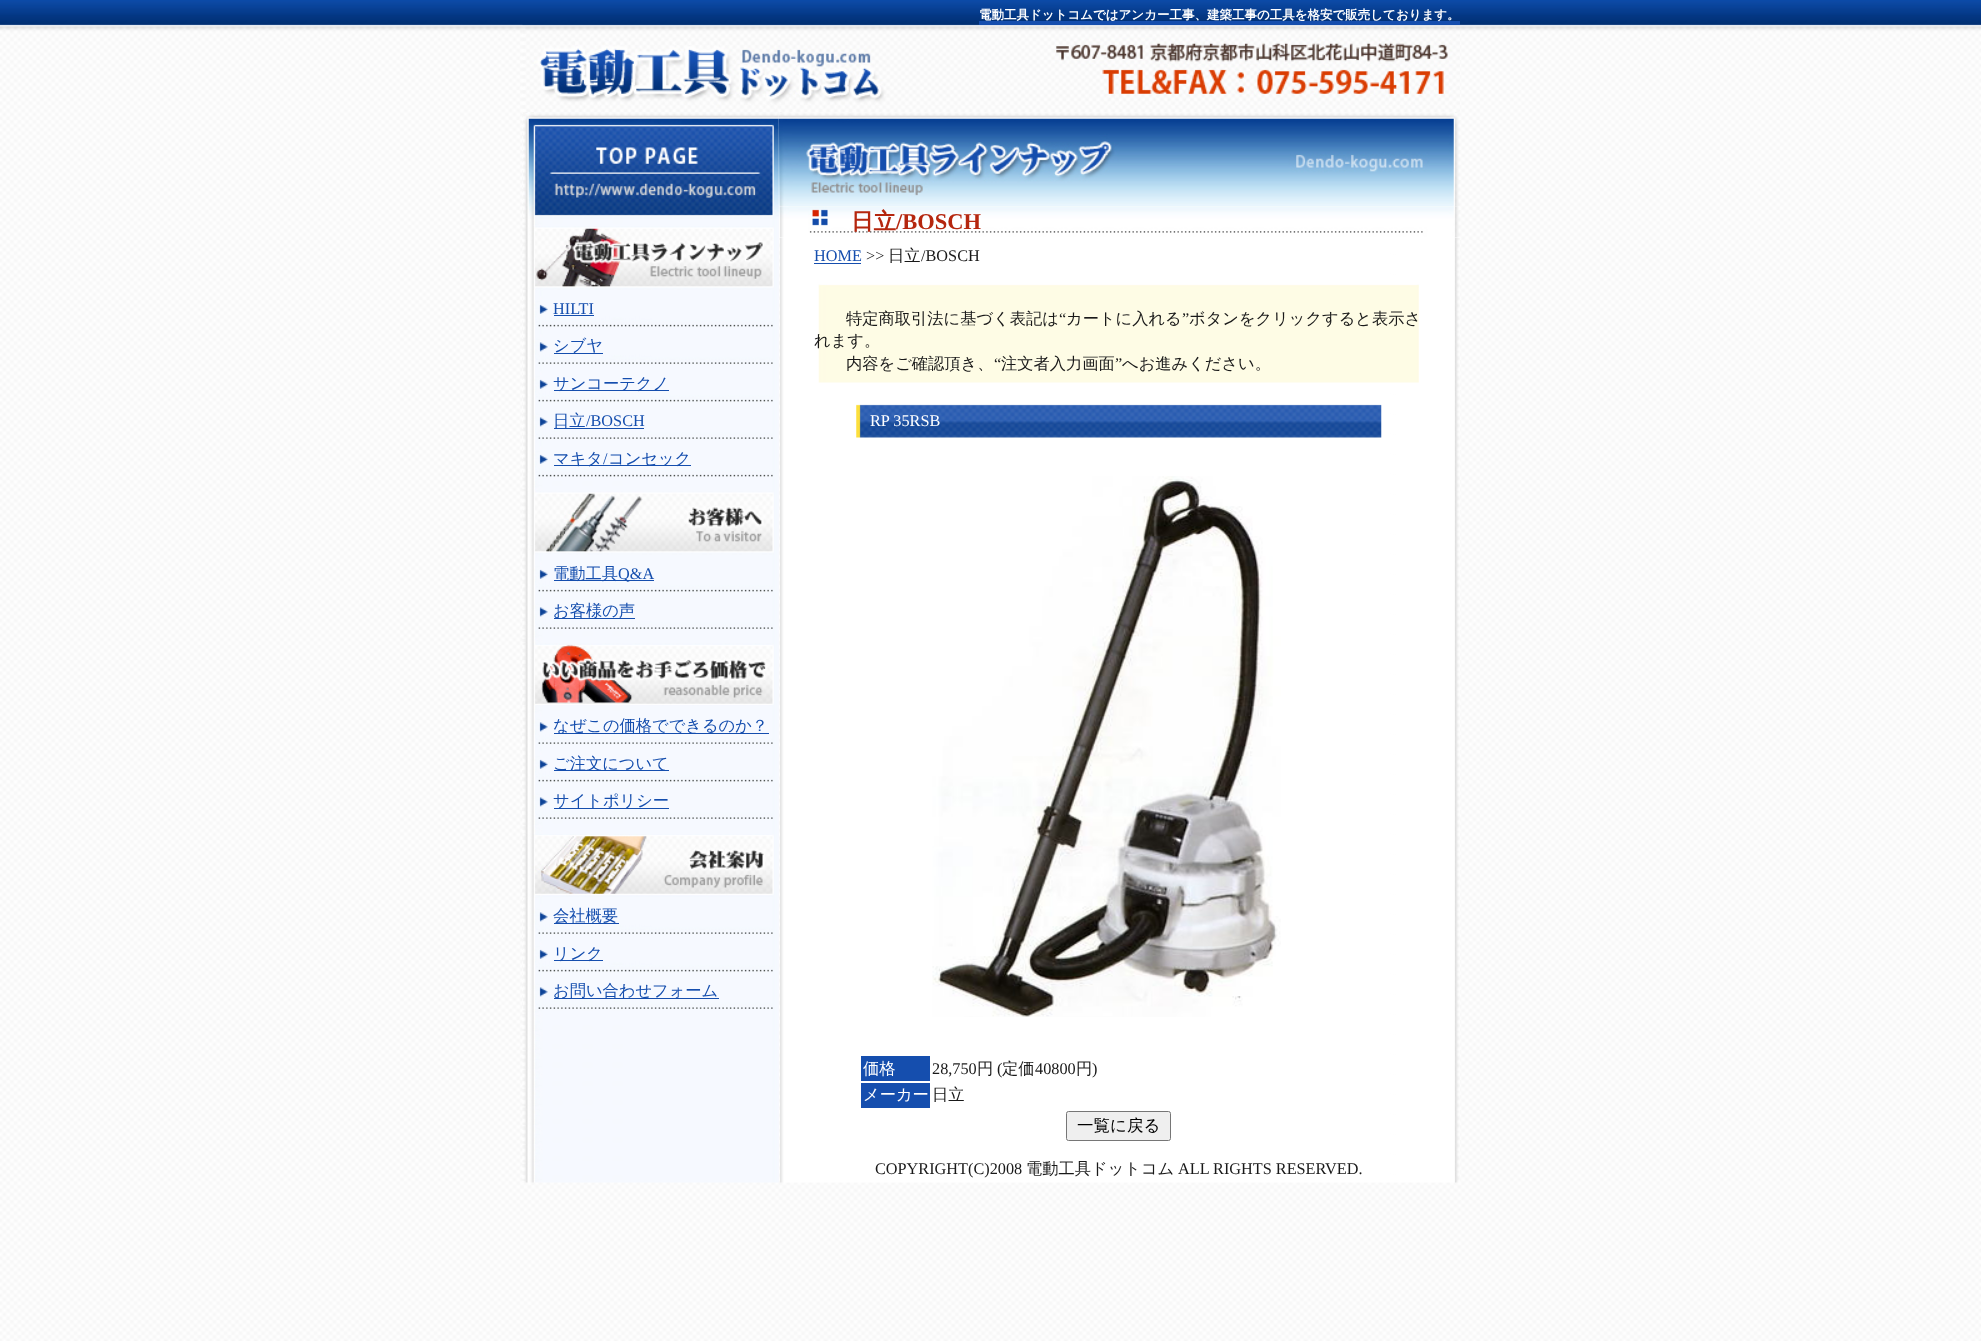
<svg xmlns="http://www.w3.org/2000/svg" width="1981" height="1341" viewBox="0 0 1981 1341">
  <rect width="100%" height="100%" fill="rgb(255,255,255)"/>
  <image x="0" y="0" width="1981" height="1341" href="pic1.png"/>
  <image x="522" y="24" width="938" height="88" href="pic2.png"/>
  <rect x="979" y="21" width="481" height="4" fill="rgb(21,78,174)"/>
  <text x="979" y="19" font-family="WenQuanYi Zen Hei" font-size="12.5" font-weight="bold" fill="rgb(255,255,255)">電動工具ドットコムではアンカー工事、建築工事の工具を格安で販売しております。</text>
  <image x="522" y="112" width="257" height="1071" href="pic3.png"/>
  <image x="523" y="112" width="256" height="107" href="pic4.png"/>
  <image x="522" y="226" width="252" height="64" href="pic5.png"/>
  <image x="523" y="290" width="250" height="187" href="pic6.png"/>
  <image x="539" y="304" width="9" height="10" href="pic7.png"/>
  <text x="553" y="314" font-family="Liberation Serif" font-size="16.25" fill="rgb(21,78,174)">HILTI</text>
  <rect x="554" y="315" width="40" height="1" fill="rgb(21,78,174)"/>
  <image x="539" y="342" width="9" height="10" href="pic8.png"/>
  <rect x="554" y="353" width="49" height="1" fill="rgb(21,78,174)"/>
  <text x="553" y="351" font-family="WenQuanYi Zen Hei" font-size="16.25" font-weight="500" fill="rgb(21,78,174)">シブヤ</text>
  <image x="539" y="379" width="9" height="10" href="pic9.png"/>
  <rect x="554" y="390" width="115" height="1" fill="rgb(21,78,174)"/>
  <text x="553" y="389" font-family="WenQuanYi Zen Hei" font-size="16.25" font-weight="500" fill="rgb(21,78,174)">サンコーテクノ</text>
  <image x="539" y="417" width="9" height="10" href="pic8.png"/>
  <text x="553" y="426" font-family="WenQuanYi Zen Hei" font-size="16.25" font-weight="500" fill="rgb(21,78,174)">日立</text>
  <text x="586" y="426" font-family="Liberation Serif" font-size="16.25" fill="rgb(21,78,174)">/BOSCH</text>
  <rect x="554" y="428" width="90" height="1" fill="rgb(21,78,174)"/>
  <image x="539" y="454" width="9" height="10" href="pic9.png"/>
  <rect x="554" y="465" width="137" height="1" fill="rgb(21,78,174)"/>
  <text x="553" y="464" font-family="WenQuanYi Zen Hei" font-size="16.25" font-weight="500" fill="rgb(21,78,174)">マキタ</text>
  <text x="603" y="464" font-family="Liberation Serif" font-size="16.25" fill="rgb(21,78,174)">/</text>
  <text x="608" y="464" font-family="WenQuanYi Zen Hei" font-size="16.25" font-weight="500" fill="rgb(21,78,174)">コンセック</text>
  <image x="522" y="491" width="252" height="64" href="pic10.png"/>
  <image x="522" y="555" width="251" height="75" href="pic11.png"/>
  <image x="539" y="569" width="9" height="10" href="pic9.png"/>
  <rect x="554" y="580" width="100" height="1" fill="rgb(21,78,174)"/>
  <text x="553" y="579" font-family="WenQuanYi Zen Hei" font-size="16.25" font-weight="500" fill="rgb(21,78,174)">電動工具</text>
  <text x="618" y="579" font-family="Liberation Serif" font-size="16.25" fill="rgb(21,78,174)">Q&amp;A</text>
  <image x="539" y="607" width="9" height="10" href="pic8.png"/>
  <rect x="554" y="618" width="81" height="1" fill="rgb(21,78,174)"/>
  <text x="553" y="616" font-family="WenQuanYi Zen Hei" font-size="16.25" font-weight="500" fill="rgb(21,78,174)">お客様の声</text>
  <image x="522" y="643" width="252" height="63" href="pic12.png"/>
  <image x="522" y="714" width="251" height="105" href="pic13.png"/>
  <image x="539" y="722" width="9" height="10" href="pic8.png"/>
  <rect x="554" y="733" width="215" height="1" fill="rgb(21,78,174)"/>
  <text x="553" y="731" font-family="WenQuanYi Zen Hei" font-size="16.25" font-weight="500" fill="rgb(21,78,174)">なぜこの価格でできるのか？</text>
  <image x="539" y="759" width="9" height="10" href="pic9.png"/>
  <rect x="554" y="770" width="115" height="1" fill="rgb(21,78,174)"/>
  <text x="553" y="769" font-family="WenQuanYi Zen Hei" font-size="16.25" font-weight="500" fill="rgb(21,78,174)">ご注文について</text>
  <image x="539" y="797" width="9" height="10" href="pic8.png"/>
  <rect x="554" y="808" width="115" height="1" fill="rgb(21,78,174)"/>
  <text x="553" y="806" font-family="WenQuanYi Zen Hei" font-size="16.25" font-weight="500" fill="rgb(21,78,174)">サイトポリシー</text>
  <image x="522" y="834" width="252" height="63" href="pic14.png"/>
  <image x="523" y="898" width="250" height="111" href="pic15.png"/>
  <image x="539" y="912" width="9" height="10" href="pic8.png"/>
  <rect x="554" y="923" width="65" height="1" fill="rgb(21,78,174)"/>
  <text x="553" y="921" font-family="WenQuanYi Zen Hei" font-size="16.25" font-weight="500" fill="rgb(21,78,174)">会社概要</text>
  <image x="539" y="949" width="9" height="10" href="pic9.png"/>
  <rect x="554" y="960" width="49" height="1" fill="rgb(21,78,174)"/>
  <text x="553" y="959" font-family="WenQuanYi Zen Hei" font-size="16.25" font-weight="500" fill="rgb(21,78,174)">リンク</text>
  <image x="539" y="987" width="9" height="10" href="pic8.png"/>
  <rect x="554" y="998" width="165" height="1" fill="rgb(21,78,174)"/>
  <text x="553" y="996" font-family="WenQuanYi Zen Hei" font-size="16.25" font-weight="500" fill="rgb(21,78,174)">お問い合わせフォーム</text>
  <image x="780" y="112" width="680" height="1071" href="pic16.png"/>
  <rect x="779" y="206" width="681" height="32" fill="rgb(255,255,255)"/>
  <image x="778" y="112" width="682" height="94" href="pic17.png"/>
  <image x="779" y="206" width="681" height="32" href="pic18.png"/>
  <text x="851" y="229" font-family="WenQuanYi Zen Hei" font-size="22.5" font-weight="bold" fill="rgb(181,38,14)">日立</text>
  <text x="896" y="229" font-family="Liberation Serif" font-size="22.5" font-weight="bold" fill="rgb(181,38,14)">/BOSCH</text>
  <image x="818" y="284" width="601" height="99" href="pic19.png"/>
  <text x="814" y="261" font-family="Liberation Serif" font-size="16.25" fill="rgb(21,78,174)">HOME</text>
  <rect x="814" y="263" width="47" height="1" fill="rgb(21,78,174)"/>
  <text x="866" y="261" font-family="Liberation Serif" font-size="16.25" fill="rgb(25,25,25)">&gt;&gt;</text>
  <text x="888" y="261" font-family="WenQuanYi Zen Hei" font-size="16.25" font-weight="500" fill="rgb(25,25,25)">日立</text>
  <text x="921" y="261" font-family="Liberation Serif" font-size="16.25" fill="rgb(25,25,25)">/BOSCH</text>
  <text x="846" y="324" font-family="WenQuanYi Zen Hei" font-size="16.25" font-weight="500" fill="rgb(25,25,25)">特定商取引法に基づく表記は</text>
  <text x="1059" y="324" font-family="Liberation Serif" font-size="16.25" fill="rgb(25,25,25)">“</text>
  <text x="1066" y="324" font-family="WenQuanYi Zen Hei" font-size="16.25" font-weight="500" fill="rgb(25,25,25)">カートに入れる</text>
  <text x="1182" y="324" font-family="Liberation Serif" font-size="16.25" fill="rgb(25,25,25)">”</text>
  <g font-family="WenQuanYi Zen Hei" font-size="16.25" font-weight="500" fill="rgb(25,25,25)">
    <text x="1189" y="324">ボタンをクリックすると表示さ</text>
    <text x="814" y="346">れます。</text>
    <text x="846" y="369">内容をご確認頂き、</text>
  </g>
  <text x="994" y="369" font-family="Liberation Serif" font-size="16.25" fill="rgb(25,25,25)">“</text>
  <text x="1001" y="369" font-family="WenQuanYi Zen Hei" font-size="16.25" font-weight="500" fill="rgb(25,25,25)">注文者入力画面</text>
  <text x="1115" y="369" font-family="Liberation Serif" font-size="16.25" fill="rgb(25,25,25)">”</text>
  <text x="1122" y="369" font-family="WenQuanYi Zen Hei" font-size="16.25" font-weight="500" fill="rgb(25,25,25)">へお進みください。</text>
  <image x="856" y="404" width="526" height="34" href="pic20.png"/>
  <text x="870" y="426" font-family="Liberation Serif" font-size="16.25" fill="rgb(255,255,255)">RP 35RSB</text>
  <image x="932" y="476" width="349" height="541" href="pic21.png"/>
  <rect x="861" y="1056" width="69" height="25" fill="rgb(21,78,174)"/>
  <text x="863" y="1074" font-family="WenQuanYi Zen Hei" font-size="16.25" font-weight="500" fill="rgb(255,255,255)">価格</text>
  <text x="932" y="1074" font-family="Liberation Serif" font-size="16.25" fill="rgb(25,25,25)">28,750</text>
  <text x="977" y="1074" font-family="WenQuanYi Zen Hei" font-size="16.25" font-weight="500" fill="rgb(25,25,25)">円</text>
  <text x="997" y="1074" font-family="Liberation Serif" font-size="16.25" fill="rgb(25,25,25)">(</text>
  <text x="1002" y="1074" font-family="WenQuanYi Zen Hei" font-size="16.25" font-weight="500" fill="rgb(25,25,25)">定価</text>
  <text x="1035" y="1074" font-family="Liberation Serif" font-size="16.25" fill="rgb(25,25,25)">40800</text>
  <text x="1076" y="1074" font-family="WenQuanYi Zen Hei" font-size="16.25" font-weight="500" fill="rgb(25,25,25)">円</text>
  <text x="1092" y="1074" font-family="Liberation Serif" font-size="16.25" fill="rgb(25,25,25)">)</text>
  <rect x="861" y="1083" width="69" height="25" fill="rgb(21,78,174)"/>
  <text x="863" y="1100" font-family="WenQuanYi Zen Hei" font-size="16.25" font-weight="500" fill="rgb(255,255,255)">メーカー</text>
  <text x="932" y="1100" font-family="WenQuanYi Zen Hei" font-size="16.25" font-weight="500" fill="rgb(25,25,25)">日立</text>
  <rect x="1066.5" y="1111.5" width="104" height="29" rx="2" fill="rgb(239,239,239)" stroke="rgb(118,118,118)"/>
  <text x="1077" y="1131" font-family="WenQuanYi Zen Hei" font-size="16.5" font-weight="500" fill="rgb(0,0,0)">一覧に戻る</text>
  <text x="875" y="1174" font-family="Liberation Serif" font-size="16.25" fill="rgb(25,25,25)">COPYRIGHT(C)2008</text>
  <text x="1026" y="1174" font-family="WenQuanYi Zen Hei" font-size="16.25" font-weight="500" fill="rgb(25,25,25)">電動工具ドットコム</text>
  <text x="1178" y="1174" font-family="Liberation Serif" font-size="16.25" fill="rgb(25,25,25)">ALL RIGHTS RESERVED.</text>
</svg>
